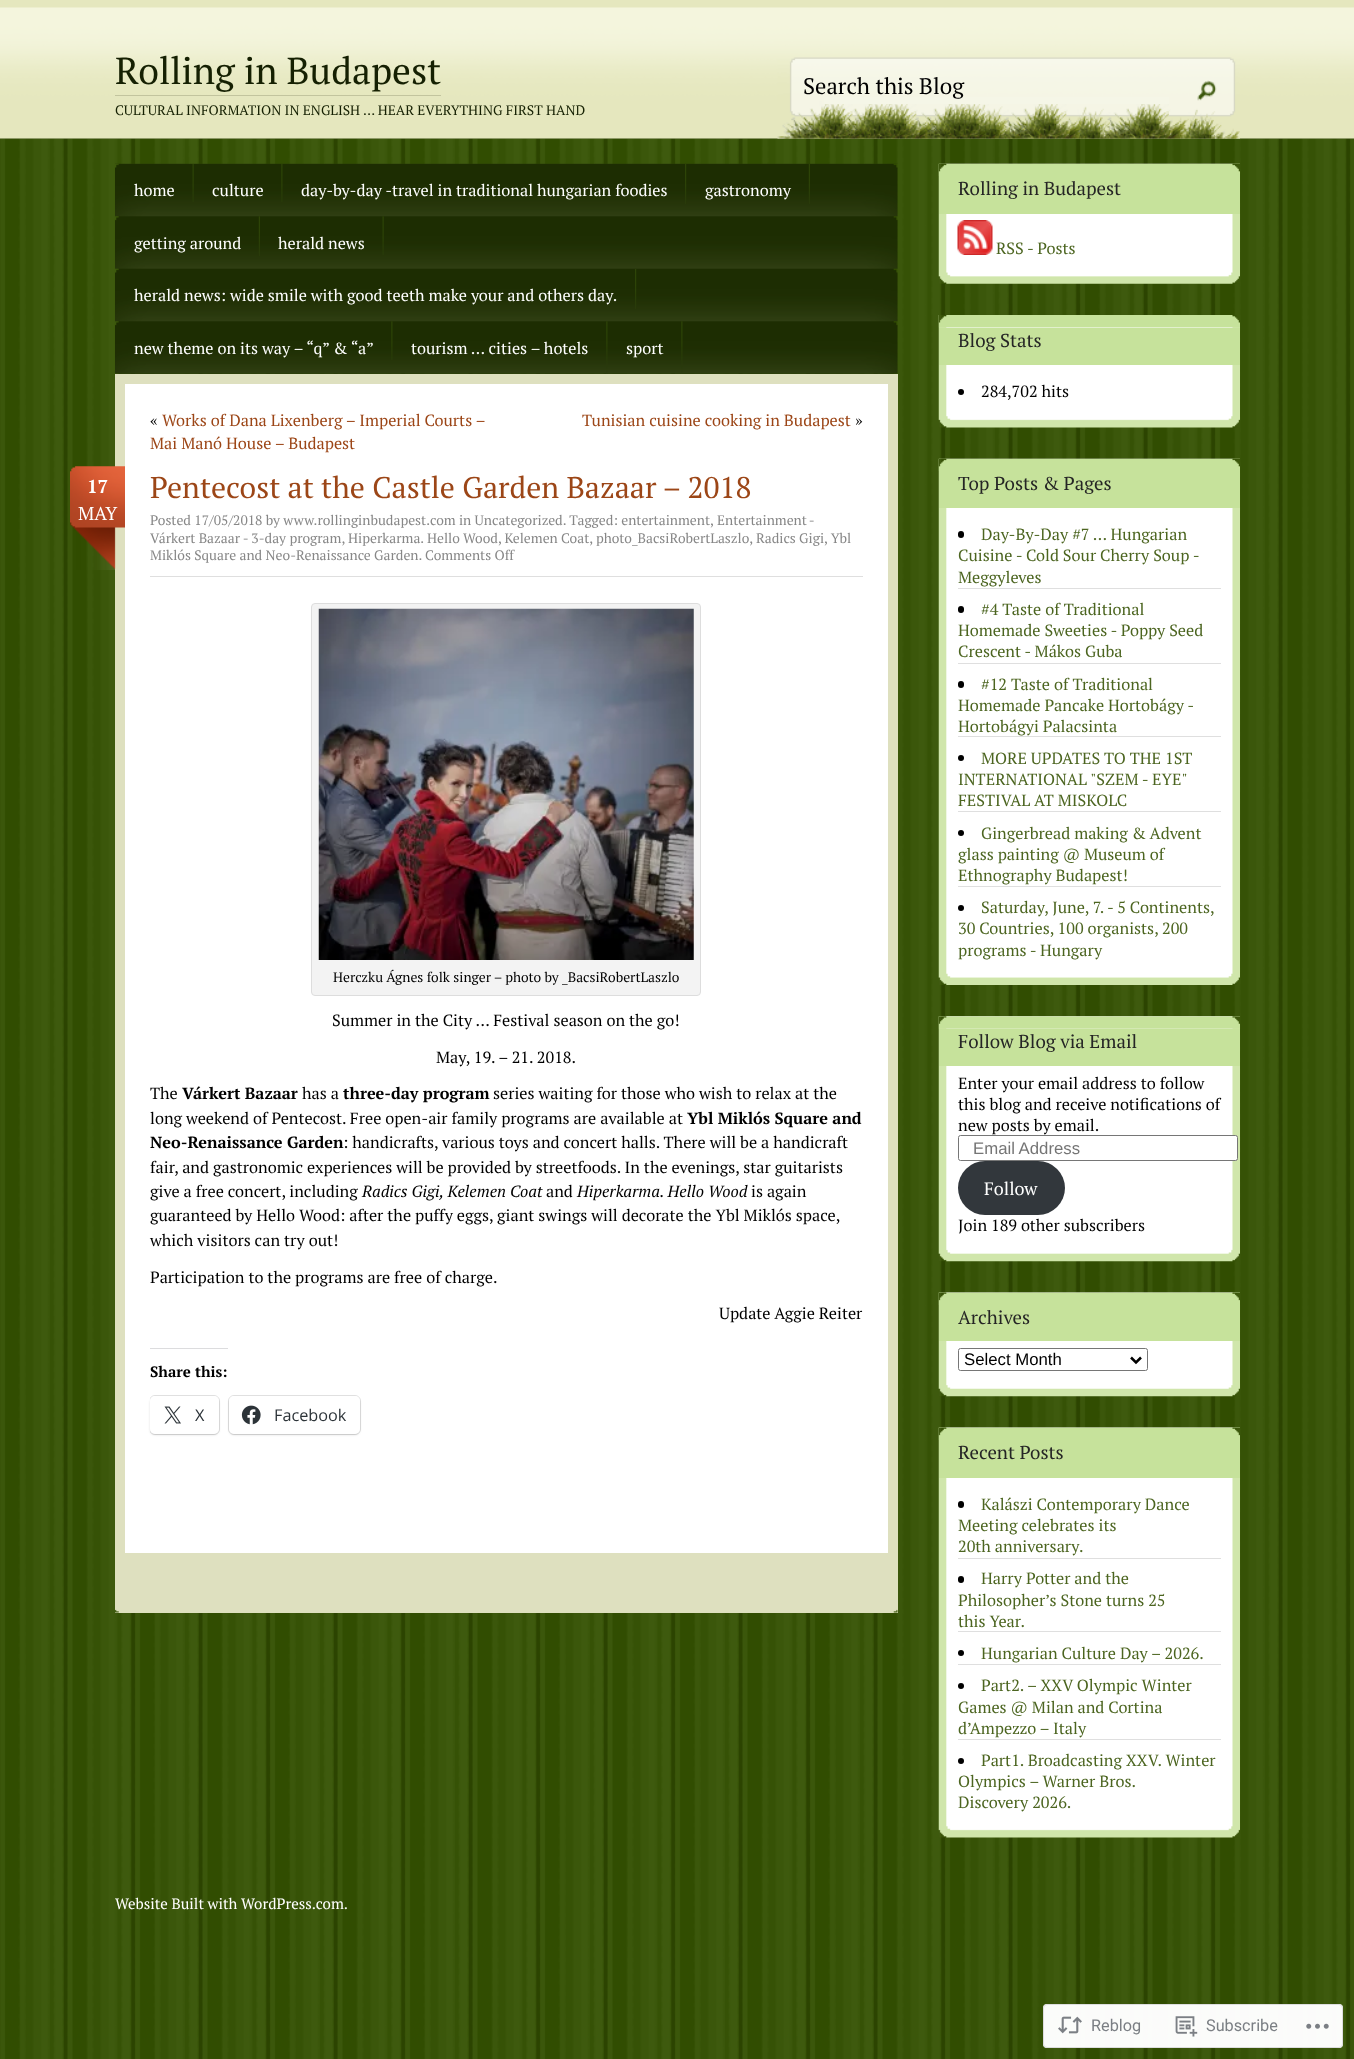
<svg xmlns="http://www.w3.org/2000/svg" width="1354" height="2059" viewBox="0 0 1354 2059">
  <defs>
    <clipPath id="clip1"><rect x="150" y="578" width="713" height="950"/></clipPath>
  </defs>
  <rect width="100%" height="100%" fill="rgb(255,255,255)"/>
  <image x="0" y="138" width="1354" height="1921" href="pic1.png"/>
  <image x="0" y="0" width="1354" height="139" href="pic2.png"/>
  <text x="115" y="84" font-family="PT Serif" font-size="37.5" fill="rgb(21,32,2)">Rolling in Budapest</text>
  <rect x="115" y="95" width="326" height="1" fill="rgb(194,196,158)"/>
  <text x="115" y="115" font-family="PT Serif" font-size="13.75" fill="rgb(21,32,2)">CULTURAL INFORMATION IN ENGLISH … HEAR EVERYTHING FIRST HAND</text>
  <image x="777" y="57" width="463" height="82" href="pic3.png"/>
  <rect x="824" y="97" width="345" height="7" fill="rgb(245,246,231)"/>
  <text x="803" y="94" font-family="PT Serif" font-size="22.5" fill="rgb(0,0,0)">Search this Blog</text>
  <image x="1197" y="80" width="20" height="21" href="pic4.png"/>
  <image x="115" y="163" width="783" height="211" href="pic5.png"/>
  <image x="192" y="164" width="2" height="38" href="pic6.png"/>
  <text x="134" y="196" font-family="PT Serif" font-size="16.25" fill="rgb(255,255,255)">home</text>
  <image x="281" y="164" width="2" height="38" href="pic7.png"/>
  <text x="212" y="196" font-family="PT Serif" font-size="16.25" fill="rgb(255,255,255)">culture</text>
  <image x="685" y="164" width="2" height="40" href="pic8.png"/>
  <text x="301" y="196" font-family="PT Serif" font-size="16.25" fill="rgb(255,255,255)">day-by-day -travel in traditional hungarian foodies</text>
  <image x="808" y="164" width="2" height="40" href="pic9.png"/>
  <text x="705" y="196" font-family="PT Serif" font-size="16.25" fill="rgb(255,255,255)">gastronomy</text>
  <image x="258" y="216" width="2" height="40" href="pic10.png"/>
  <text x="134" y="249" font-family="PT Serif" font-size="16.25" fill="rgb(255,255,255)">getting around</text>
  <image x="382" y="216" width="2" height="39" href="pic11.png"/>
  <text x="278" y="249" font-family="PT Serif" font-size="16.25" fill="rgb(255,255,255)">herald news</text>
  <image x="635" y="269" width="2" height="40" href="pic8.png"/>
  <text x="134" y="301" font-family="PT Serif" font-size="16.25" fill="rgb(255,255,255)">herald news: wide smile with good teeth make your and others day.</text>
  <image x="391" y="321" width="2" height="39" href="pic12.png"/>
  <text x="134" y="354" font-family="PT Serif" font-size="16.25" fill="rgb(255,255,255)">new theme on its way – “q” &amp; “a”</text>
  <image x="606" y="321" width="2" height="53" href="pic13.png"/>
  <text x="411" y="354" font-family="PT Serif" font-size="16.25" fill="rgb(255,255,255)">tourism … cities – hotels</text>
  <image x="681" y="321" width="2" height="53" href="pic14.png"/>
  <text x="626" y="354" font-family="PT Serif" font-size="16.25" fill="rgb(255,255,255)">sport</text>
  <rect x="115" y="374" width="783" height="1239" fill="rgb(222,224,191)"/>
  <image x="115" y="1609" width="783" height="4" href="pic15.png"/>
  <rect x="125" y="384" width="763" height="1169" fill="rgb(255,255,255)"/>
  <text x="150" y="426" font-family="PT Serif" font-size="16.25" fill="rgb(0,0,0)">«</text>
  <g font-family="PT Serif" font-size="16.25" fill="rgb(156,70,23)">
    <text x="162" y="426">Works of Dana Lixenberg – Imperial Courts –</text>
    <text x="150" y="449">Mai Manó House – Budapest</text>
    <text x="582" y="426">Tunisian cuisine cooking in Budapest</text>
  </g>
  <text x="855" y="426" font-family="PT Serif" font-size="16.25" fill="rgb(0,0,0)">»</text>
  <image x="70" y="466" width="55" height="104" href="pic16.png"/>
  <text x="87" y="493" font-family="PT Serif" font-size="18.75" font-weight="bold" fill="rgb(255,255,255)">17</text>
  <text x="78" y="520" font-family="PT Serif" font-size="18.75" fill="rgb(255,255,255)">MAY</text>
  <text x="150" y="498" font-family="PT Serif" font-size="30" fill="rgb(156,70,23)">Pentecost at the Castle Garden Bazaar – 2018</text>
  <rect x="150" y="576" width="713" height="1" fill="rgb(223,223,223)"/>
  <g font-family="PT Serif" font-size="13.75" fill="rgb(135,135,135)">
    <text x="150" y="525">Posted 17/05/2018 by www.rollinginbudapest.com in Uncategorized. Tagged: entertainment,</text>
    <text x="717" y="525" word-spacing="-1">Entertainment -</text>
    <text>
      <tspan x="150" y="543">Várkert Bazaar - 3-day program, Hiperkarma. Hello Wood, Kelemen Coat, photo_BacsiRobertLaszlo, Radics Gigi, Ybl</tspan>
      <tspan x="150" y="560">Miklós Square and Neo-Renaissance Garden. Comments Off</tspan>
    </text>
  </g>
  <rect x="311.5" y="603.5" width="389" height="392" rx="3.5" fill="rgb(243,243,243)" stroke="rgb(221,221,221)"/>
  <image x="318" y="608" width="376" height="352" href="pic17.png"/>
  <text x="333" y="982" font-family="PT Serif" font-size="13.75" fill="rgb(0,0,0)">Herczku Ágnes folk singer – photo by _BacsiRobertLaszlo</text>
  <g font-family="PT Serif" font-size="16.25" fill="rgb(0,0,0)">
    <text x="332" y="1026">Summer in the City … Festival season on the go!</text>
    <text x="436" y="1063">May, 19. – 21. 2018.</text>
    <text x="150" y="1099">The</text>
  </g>
  <text x="182" y="1099" font-family="PT Serif" font-size="16.25" font-weight="bold" fill="rgb(0,0,0)">Várkert Bazaar</text>
  <text x="302" y="1099" font-family="PT Serif" font-size="16.25" fill="rgb(0,0,0)">has a</text>
  <text x="343" y="1099" font-family="PT Serif" font-size="16.25" font-weight="bold" fill="rgb(0,0,0)">three-day program</text>
  <g font-family="PT Serif" font-size="16.25" fill="rgb(0,0,0)">
    <text x="493" y="1099">series waiting for those who wish to relax at the</text>
    <text x="150" y="1124">long weekend of Pentecost. Free open-air family programs are available at</text>
  </g>
  <g font-family="PT Serif" font-size="16.25" font-weight="bold" fill="rgb(0,0,0)">
    <text x="687" y="1124">Ybl Miklós Square and</text>
    <text x="150" y="1148">Neo-Renaissance Garden</text>
  </g>
  <g font-family="PT Serif" font-size="16.25" fill="rgb(0,0,0)">
    <text x="343" y="1148">: handicrafts, various toys and concert halls. There will be a handicraft</text>
    <text>
      <tspan x="150" y="1173">fair, and gastronomic experiences will be provided by streetfoods. In the evenings, star guitarists</tspan>
      <tspan x="150" y="1197">give a free concert, including</tspan>
    </text>
  </g>
  <text x="362" y="1197" font-family="PT Serif" font-size="16.25" font-style="italic" fill="rgb(0,0,0)">Radics Gigi, Kelemen Coat</text>
  <text x="546" y="1197" font-family="PT Serif" font-size="16.25" fill="rgb(0,0,0)">and</text>
  <text x="577" y="1197" font-family="PT Serif" font-size="16.25" font-style="italic" fill="rgb(0,0,0)">Hiperkarma. Hello Wood</text>
  <g font-family="PT Serif" font-size="16.25" fill="rgb(0,0,0)">
    <text x="751" y="1197">is again</text>
    <text>
      <tspan x="150" y="1221">guaranteed by Hello Wood: after the puffy eggs, giant swings will decorate the Ybl Miklós space,</tspan>
      <tspan x="150" y="1246">which visitors can try out!</tspan>
    </text>
    <text x="150" y="1283">Participation to the programs are free of charge.</text>
    <text x="719" y="1319">Update Aggie Reiter</text>
  </g>
  <rect x="150" y="1348" width="78" height="1" fill="rgb(220,220,222)"/>
  <text x="150" y="1377" font-family="PT Serif" font-size="15" font-weight="bold" fill="rgb(0,0,0)">Share this:</text>
  <g clip-path="url(#clip1)">
    <rect x="149.5" y="1395.5" width="70" height="39" rx="5.5" fill="none" stroke="rgb(224,224,224)"/>
  </g>
  <rect x="150" y="1398" width="69" height="37" rx="5" fill="rgba(0,0,0,0.12)" filter="blur(1px)"/>
  <rect x="150" y="1396" width="69" height="38" rx="5" fill="rgb(255,255,255)"/>
  <image x="164" y="1406" width="17" height="18" href="pic18.png"/>
  <text x="195" y="1421" font-family="Open Sans" font-size="16.25" fill="rgb(44,51,56)">X</text>
  <rect x="228.5" y="1395.5" width="132" height="39" rx="5.5" fill="none" stroke="rgb(224,224,224)"/>
  <rect x="229" y="1398" width="131" height="37" rx="5" fill="rgba(0,0,0,0.12)" filter="blur(1px)"/>
  <rect x="229" y="1396" width="131" height="38" rx="5" fill="rgb(255,255,255)"/>
  <image x="241" y="1405" width="20" height="20" href="pic19.png"/>
  <text x="274" y="1421" font-family="Open Sans" font-size="16.25" fill="rgb(44,51,56)">Facebook</text>
  <image x="938" y="163" width="302" height="121" href="pic20.png"/>
  <image x="938" y="163" width="302" height="13" href="pic21.png"/>
  <rect x="939" y="176" width="301" height="38" fill="rgb(198,226,155)"/>
  <text x="958" y="195" font-family="PT Serif" font-size="18.75" fill="rgb(37,37,37)">Rolling in Budapest</text>
  <image x="957" y="220" width="36" height="35" href="pic22.png"/>
  <text x="996" y="254" font-family="PT Serif" font-size="16.25" fill="rgb(76,101,32)">RSS - Posts</text>
  <image x="938" y="315" width="302" height="113" href="pic23.png"/>
  <image x="938" y="315" width="302" height="13" href="pic24.png"/>
  <rect x="939" y="328" width="301" height="37" fill="rgb(198,226,155)"/>
  <text x="958" y="347" font-family="PT Serif" font-size="18.75" fill="rgb(37,37,37)">Blog Stats</text>
  <circle cx="961" cy="392" r="3" fill="rgb(0,0,0)"/>
  <text x="981" y="397" font-family="PT Serif" font-size="16.25" fill="rgb(0,0,0)">284,702 hits</text>
  <image x="938" y="458" width="302" height="527" href="pic25.png"/>
  <image x="938" y="458" width="302" height="13" href="pic26.png"/>
  <rect x="939" y="471" width="301" height="37" fill="rgb(198,226,155)"/>
  <text x="958" y="490" font-family="PT Serif" font-size="18.75" fill="rgb(37,37,37)">Top Posts &amp; Pages</text>
  <rect x="958" y="531" width="6" height="7" rx="3" fill="rgb(0,0,0)"/>
  <g font-family="PT Serif" font-size="16.25" fill="rgb(76,101,32)">
    <text x="981" y="540">Day-By-Day #7 … Hungarian</text>
    <text>
      <tspan x="958" y="561">Cuisine - Cold Sour Cherry Soup -</tspan>
      <tspan x="958" y="583">Meggyleves</tspan>
    </text>
  </g>
  <rect x="958" y="588" width="263" height="1" fill="rgb(223,223,223)"/>
  <rect x="958" y="606" width="6" height="7" rx="3" fill="rgb(0,0,0)"/>
  <g font-family="PT Serif" font-size="16.25" fill="rgb(76,101,32)">
    <text x="981" y="615">#4 Taste of Traditional</text>
    <text>
      <tspan x="958" y="636">Homemade Sweeties - Poppy Seed</tspan>
      <tspan x="958" y="657">Crescent - Mákos Guba</tspan>
    </text>
  </g>
  <rect x="958" y="663" width="263" height="1" fill="rgb(223,223,223)"/>
  <rect x="958" y="681" width="6" height="7" rx="3" fill="rgb(0,0,0)"/>
  <g font-family="PT Serif" font-size="16.25" fill="rgb(76,101,32)">
    <text x="981" y="690">#12 Taste of Traditional</text>
    <text>
      <tspan x="958" y="711">Homemade Pancake Hortobágy -</tspan>
      <tspan x="958" y="732">Hortobágyi Palacsinta</tspan>
    </text>
  </g>
  <rect x="958" y="736" width="263" height="1" fill="rgb(223,223,223)"/>
  <circle cx="961" cy="758" r="3" fill="rgb(0,0,0)"/>
  <g font-family="PT Serif" font-size="16.25" fill="rgb(76,101,32)">
    <text x="981" y="764">MORE UPDATES TO THE 1ST</text>
    <text>
      <tspan x="958" y="785">INTERNATIONAL "SZEM - EYE"</tspan>
      <tspan x="958" y="806">FESTIVAL AT MISKOLC</tspan>
    </text>
  </g>
  <rect x="958" y="811" width="263" height="1" fill="rgb(223,223,223)"/>
  <circle cx="961" cy="833" r="3" fill="rgb(0,0,0)"/>
  <g font-family="PT Serif" font-size="16.25" fill="rgb(76,101,32)">
    <text x="981" y="839">Gingerbread making &amp; Advent</text>
    <text>
      <tspan x="958" y="860">glass painting @ Museum of</tspan>
      <tspan x="958" y="881">Ethnography Budapest!</tspan>
    </text>
  </g>
  <rect x="958" y="886" width="263" height="1" fill="rgb(223,223,223)"/>
  <circle cx="961" cy="908" r="3" fill="rgb(0,0,0)"/>
  <g font-family="PT Serif" font-size="16.25" fill="rgb(76,101,32)">
    <text x="981" y="913">Saturday, June, 7. - 5 Continents,</text>
    <text>
      <tspan x="958" y="934">30 Countries, 100 organists, 200</tspan>
      <tspan x="958" y="956">programs - Hungary</tspan>
    </text>
  </g>
  <image x="938" y="1016" width="302" height="246" href="pic27.png"/>
  <image x="938" y="1016" width="302" height="13" href="pic28.png"/>
  <rect x="939" y="1029" width="301" height="37" fill="rgb(198,226,155)"/>
  <text x="958" y="1048" font-family="PT Serif" font-size="18.75" fill="rgb(37,37,37)">Follow Blog via Email</text>
  <g font-family="PT Serif" font-size="16.25" fill="rgb(0,0,0)">
    <text>
      <tspan x="958" y="1089">Enter your email address to follow</tspan>
      <tspan x="958" y="1110">this blog and receive notifications of</tspan>
      <tspan x="958" y="1131">new posts by email.</tspan>
    </text>
  </g>
  <rect x="958.5" y="1135.5" width="279" height="25" rx="2" fill="rgb(255,255,255)" stroke="rgb(118,118,118)"/>
  <text x="973" y="1154" font-family="Liberation Sans" font-size="16.75" fill="rgb(117,117,117)">Email Address</text>
  <rect x="958" y="1161" width="107" height="54" rx="27" fill="rgb(50,55,60)"/>
  <text x="984" y="1195" font-family="PT Serif" font-size="18" fill="rgb(255,255,255)">Follow</text>
  <text x="958" y="1231" font-family="PT Serif" font-size="16.25" fill="rgb(0,0,0)">Join 189 other subscribers</text>
  <image x="938" y="1292" width="302" height="105" href="pic29.png"/>
  <image x="938" y="1292" width="302" height="13" href="pic30.png"/>
  <rect x="939" y="1305" width="301" height="36" fill="rgb(198,226,155)"/>
  <text x="958" y="1324" font-family="PT Serif" font-size="18.75" fill="rgb(37,37,37)">Archives</text>
  <rect x="958.5" y="1348.5" width="189" height="22" rx="2" fill="none" stroke="rgb(118,118,118)"/>
  <path d="M1131 1357.5L1136 1362.5L1141 1357.5" fill="none" stroke="rgb(0,0,0)" stroke-width="2.5"/>
  <text x="964" y="1365" font-family="Liberation Sans" font-size="16.75" fill="rgb(0,0,0)">Select Month</text>
  <image x="938" y="1427" width="302" height="411" href="pic31.png"/>
  <image x="938" y="1427" width="302" height="13" href="pic30.png"/>
  <rect x="939" y="1440" width="301" height="38" fill="rgb(198,226,155)"/>
  <text x="958" y="1459" font-family="PT Serif" font-size="18.75" fill="rgb(37,37,37)">Recent Posts</text>
  <rect x="958" y="1501" width="6" height="7" rx="3" fill="rgb(0,0,0)"/>
  <g font-family="PT Serif" font-size="16.25" fill="rgb(76,101,32)">
    <text x="981" y="1510">Kalászi Contemporary Dance</text>
    <text>
      <tspan x="958" y="1531">Meeting celebrates its</tspan>
      <tspan x="958" y="1552">20th anniversary.</tspan>
    </text>
  </g>
  <rect x="958" y="1558" width="263" height="1" fill="rgb(223,223,223)"/>
  <rect x="958" y="1576" width="6" height="7" rx="3" fill="rgb(0,0,0)"/>
  <g font-family="PT Serif" font-size="16.25" fill="rgb(76,101,32)">
    <text x="981" y="1584">Harry Potter and the</text>
    <text>
      <tspan x="958" y="1606">Philosopher’s Stone turns 25</tspan>
      <tspan x="958" y="1627">this Year.</tspan>
    </text>
  </g>
  <rect x="958" y="1631" width="263" height="1" fill="rgb(223,223,223)"/>
  <circle cx="961" cy="1653" r="3" fill="rgb(0,0,0)"/>
  <text x="981" y="1659" font-family="PT Serif" font-size="16.25" fill="rgb(76,101,32)">Hungarian Culture Day – 2026.</text>
  <rect x="958" y="1664" width="263" height="1" fill="rgb(223,223,223)"/>
  <circle cx="961" cy="1686" r="3" fill="rgb(0,0,0)"/>
  <g font-family="PT Serif" font-size="16.25" fill="rgb(76,101,32)">
    <text x="981" y="1691">Part2. – XXV Olympic Winter</text>
    <text>
      <tspan x="958" y="1713">Games @ Milan and Cortina</tspan>
      <tspan x="958" y="1734">d’Ampezzo – Italy</tspan>
    </text>
  </g>
  <rect x="958" y="1739" width="263" height="1" fill="rgb(223,223,223)"/>
  <circle cx="961" cy="1761" r="3" fill="rgb(0,0,0)"/>
  <g font-family="PT Serif" font-size="16.25" fill="rgb(76,101,32)">
    <text x="981" y="1766">Part1. Broadcasting XXV. Winter</text>
    <text>
      <tspan x="958" y="1787">Olympics – Warner Bros.</tspan>
      <tspan x="958" y="1808">Discovery 2026.</tspan>
    </text>
  </g>
  <text x="115" y="1909" font-family="PT Serif" font-size="15" fill="rgb(255,255,255)">Website Built with WordPress.com.</text>
  <rect x="1043" y="2004" width="300" height="44" rx="4" fill="rgba(255,255,255,0.98)"/>
  <rect x="1043.5" y="2004.5" width="299" height="43" rx="3.5" fill="none" stroke="rgba(220,220,222,0.98)"/>
  <image x="1058" y="2016" width="24" height="18" href="pic32.png"/>
  <text x="1091" y="2031" font-family="Roboto" font-size="16.25" fill="rgb(123,127,132)">Reblog</text>
  <image x="1175" y="2016" width="23" height="21" href="pic33.png"/>
  <text x="1206" y="2031" font-family="Roboto" font-size="16.25" fill="rgb(123,127,132)">Subscribe</text>
  <image x="1306" y="2023" width="23" height="6" href="pic34.png"/>
</svg>
